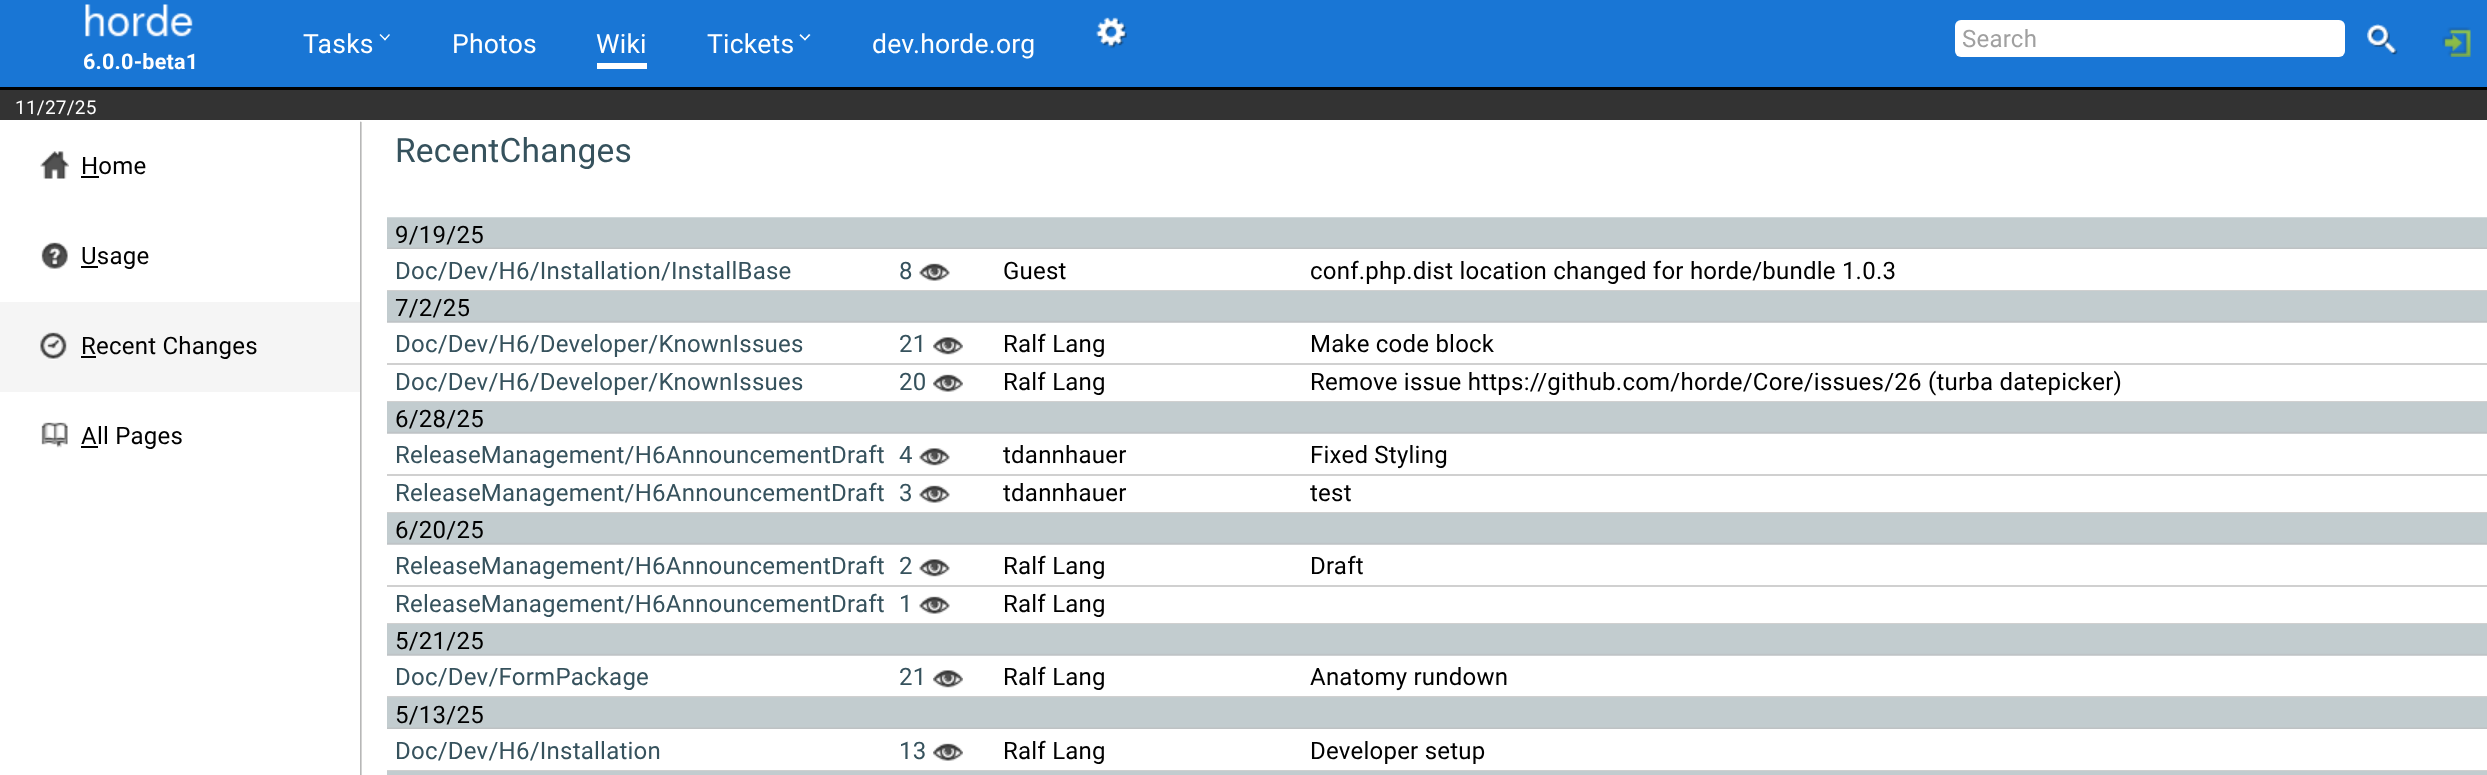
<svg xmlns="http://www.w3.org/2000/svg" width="2487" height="775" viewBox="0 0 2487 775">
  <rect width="100%" height="100%" fill="rgb(255,255,255)"/>
  <rect x="361" y="122" width="1" height="653" fill="rgb(224,224,224)"/>
  <rect x="0" y="0" width="2487" height="87" fill="rgb(25,118,213)"/>
  <rect x="0" y="87" width="2487" height="3" fill="rgb(0,0,0)"/>
  <image x="85" y="4" width="108" height="33" href="pic1.png"/>
  <text x="303" y="53" font-family="Roboto" font-size="26.5" letter-spacing="0.23" fill="rgb(255,255,255)">Tasks</text>
  <path d="M389 34L390 35L385 40.5L384 39.5Z" fill="rgb(255,255,255)"/>
  <path d="M380.5 34L386 39.5L385 40.5L379.5 35Z" fill="rgb(255,255,255)"/>
  <text x="452" y="53" font-family="Roboto" font-size="26.5" letter-spacing="0.23" fill="rgb(255,255,255)">Photos</text>
  <rect x="597" y="63" width="50" height="6" fill="rgb(255,255,255)"/>
  <g font-family="Roboto" font-size="26.5" letter-spacing="0.23" fill="rgb(255,255,255)">
    <text x="596" y="53">Wiki</text>
    <text x="707" y="53">Tickets</text>
  </g>
  <path d="M809 34L810.5 35L805 40.5L804 39.5Z" fill="rgb(255,255,255)"/>
  <path d="M800.5 34L806 39.5L805 40.5L799.5 35.5Z" fill="rgb(255,255,255)"/>
  <text x="872" y="53" font-family="Roboto" font-size="26.5" letter-spacing="0.23" fill="rgb(255,255,255)">dev.horde.org</text>
  <image x="1096" y="17" width="31" height="32" href="pic2.png"/>
  <rect x="1955" y="20" width="390" height="37" rx="6" fill="rgb(255,255,255)"/>
  <text x="1962" y="47" font-family="Roboto" font-size="24" letter-spacing="0.23" fill="rgb(160,160,160)">Search</text>
  <image x="2367" y="24" width="31" height="31" href="pic3.png"/>
  <image x="2442" y="27" width="29" height="30" href="pic4.png"/>
  <text x="83" y="69" font-family="Roboto" font-size="21.5" font-weight="bold" letter-spacing="0.23" fill="rgb(255,255,255)">6.0.0-beta1</text>
  <rect x="0" y="90" width="2487" height="30" fill="rgb(51,51,51)"/>
  <text x="15" y="114" font-family="Roboto" font-size="19" letter-spacing="0.23" fill="rgb(255,255,255)">11/27/25</text>
  <image x="40" y="151" width="29" height="28" href="pic5.png"/>
  <text x="81" y="174" font-family="Roboto" font-size="24" letter-spacing="0.23" fill="rgb(0,0,0)">Home</text>
  <rect x="81" y="176" width="18" height="2" fill="rgb(0,0,0)"/>
  <image x="41" y="242" width="27" height="27" href="pic6.png"/>
  <rect x="81" y="266" width="17" height="2" fill="rgb(0,0,0)"/>
  <text x="81" y="264" font-family="Roboto" font-size="24" letter-spacing="0.23" fill="rgb(0,0,0)">Usage</text>
  <rect x="0" y="302" width="360" height="90" fill="rgb(245,245,245)"/>
  <image x="40" y="332" width="27" height="28" href="pic7.png"/>
  <rect x="81" y="356" width="15" height="2" fill="rgb(0,0,0)"/>
  <text x="81" y="354" font-family="Roboto" font-size="24" letter-spacing="0.23" fill="rgb(0,0,0)">Recent Changes</text>
  <image x="41" y="422" width="27" height="26" href="pic8.png"/>
  <rect x="81" y="446" width="17" height="2" fill="rgb(0,0,0)"/>
  <text x="81" y="444" font-family="Roboto" font-size="24" letter-spacing="0.23" fill="rgb(0,0,0)">All Pages</text>
  <image x="360" y="121" width="2" height="654" href="pic9.png"/>
  <text x="395" y="162" font-family="Roboto" font-size="33.5" letter-spacing="0.23" fill="rgb(54,82,93)">RecentChanges</text>
  <image x="387" y="217" width="2100" height="32" href="pic10.png"/>
  <text x="395" y="243" font-family="Roboto" font-size="24" letter-spacing="0.23" fill="rgb(0,0,0)">9/19/25</text>
  <rect x="387" y="290" width="2100" height="1" fill="rgb(208,208,208)"/>
  <g font-family="Roboto" font-size="24" letter-spacing="0.23" fill="rgb(54,82,93)">
    <text x="395" y="279">Doc/Dev/H6/Installation/InstallBase</text>
    <text x="899" y="279">8</text>
  </g>
  <image x="919" y="263" width="31" height="18" href="pic11.png"/>
  <g font-family="Roboto" font-size="24" letter-spacing="0.23" fill="rgb(0,0,0)">
    <text x="1003" y="279">Guest</text>
    <text x="1310" y="279">conf.php.dist location changed for horde/bundle 1.0.3</text>
  </g>
  <image x="387" y="291" width="2100" height="32" href="pic12.png"/>
  <text x="395" y="316" font-family="Roboto" font-size="24" letter-spacing="0.23" fill="rgb(0,0,0)">7/2/25</text>
  <rect x="387" y="363" width="2100" height="2" fill="rgb(208,208,208)"/>
  <g font-family="Roboto" font-size="24" letter-spacing="0.23" fill="rgb(54,82,93)">
    <text x="395" y="352">Doc/Dev/H6/Developer/KnownIssues</text>
    <text x="899" y="352">21</text>
  </g>
  <image x="933" y="337" width="30" height="18" href="pic13.png"/>
  <g font-family="Roboto" font-size="24" letter-spacing="0.23" fill="rgb(0,0,0)">
    <text x="1003" y="352">Ralf Lang</text>
    <text x="1310" y="352">Make code block</text>
  </g>
  <rect x="387" y="401" width="2100" height="1" fill="rgb(208,208,208)"/>
  <g font-family="Roboto" font-size="24" letter-spacing="0.23" fill="rgb(54,82,93)">
    <text x="395" y="390">Doc/Dev/H6/Developer/KnownIssues</text>
    <text x="899" y="390">20</text>
  </g>
  <image x="933" y="374" width="30" height="18" href="pic14.png"/>
  <g font-family="Roboto" font-size="24" letter-spacing="0.23" fill="rgb(0,0,0)">
    <text x="1003" y="390">Ralf Lang</text>
    <text x="1310" y="390">Remove issue https://github.com/horde/Core/issues/26 (turba datepicker)</text>
  </g>
  <image x="387" y="402" width="2100" height="32" href="pic12.png"/>
  <text x="395" y="427" font-family="Roboto" font-size="24" letter-spacing="0.23" fill="rgb(0,0,0)">6/28/25</text>
  <rect x="387" y="474" width="2100" height="2" fill="rgb(208,208,208)"/>
  <g font-family="Roboto" font-size="24" letter-spacing="0.23" fill="rgb(54,82,93)">
    <text x="395" y="463">ReleaseManagement/H6AnnouncementDraft</text>
    <text x="899" y="463">4</text>
  </g>
  <image x="919" y="448" width="31" height="18" href="pic15.png"/>
  <g font-family="Roboto" font-size="24" letter-spacing="0.23" fill="rgb(0,0,0)">
    <text x="1003" y="463">tdannhauer</text>
    <text x="1310" y="463">Fixed Styling</text>
  </g>
  <rect x="387" y="512" width="2100" height="1" fill="rgb(208,208,208)"/>
  <g font-family="Roboto" font-size="24" letter-spacing="0.23" fill="rgb(54,82,93)">
    <text x="395" y="501">ReleaseManagement/H6AnnouncementDraft</text>
    <text x="899" y="501">3</text>
  </g>
  <image x="919" y="485" width="31" height="18" href="pic11.png"/>
  <g font-family="Roboto" font-size="24" letter-spacing="0.23" fill="rgb(0,0,0)">
    <text x="1003" y="501">tdannhauer</text>
    <text x="1310" y="501">test</text>
  </g>
  <image x="387" y="513" width="2100" height="32" href="pic12.png"/>
  <text x="395" y="538" font-family="Roboto" font-size="24" letter-spacing="0.23" fill="rgb(0,0,0)">6/20/25</text>
  <rect x="387" y="585" width="2100" height="2" fill="rgb(208,208,208)"/>
  <g font-family="Roboto" font-size="24" letter-spacing="0.23" fill="rgb(54,82,93)">
    <text x="395" y="574">ReleaseManagement/H6AnnouncementDraft</text>
    <text x="899" y="574">2</text>
  </g>
  <image x="919" y="559" width="31" height="18" href="pic15.png"/>
  <g font-family="Roboto" font-size="24" letter-spacing="0.23" fill="rgb(0,0,0)">
    <text x="1003" y="574">Ralf Lang</text>
    <text x="1310" y="574">Draft</text>
  </g>
  <rect x="387" y="623" width="2100" height="1" fill="rgb(208,208,208)"/>
  <g font-family="Roboto" font-size="24" letter-spacing="0.23" fill="rgb(54,82,93)">
    <text x="395" y="612">ReleaseManagement/H6AnnouncementDraft</text>
    <text x="899" y="612">1</text>
  </g>
  <image x="919" y="596" width="31" height="18" href="pic11.png"/>
  <text x="1003" y="612" font-family="Roboto" font-size="24" letter-spacing="0.23" fill="rgb(0,0,0)">Ralf Lang</text>
  <image x="387" y="624" width="2100" height="32" href="pic12.png"/>
  <text x="395" y="649" font-family="Roboto" font-size="24" letter-spacing="0.23" fill="rgb(0,0,0)">5/21/25</text>
  <rect x="387" y="696" width="2100" height="2" fill="rgb(208,208,208)"/>
  <g font-family="Roboto" font-size="24" letter-spacing="0.23" fill="rgb(54,82,93)">
    <text x="395" y="685">Doc/Dev/FormPackage</text>
    <text x="899" y="685">21</text>
  </g>
  <image x="933" y="670" width="30" height="18" href="pic13.png"/>
  <g font-family="Roboto" font-size="24" letter-spacing="0.23" fill="rgb(0,0,0)">
    <text x="1003" y="685">Ralf Lang</text>
    <text x="1310" y="685">Anatomy rundown</text>
  </g>
  <image x="387" y="697" width="2100" height="32" href="pic16.png"/>
  <text x="395" y="723" font-family="Roboto" font-size="24" letter-spacing="0.23" fill="rgb(0,0,0)">5/13/25</text>
  <rect x="387" y="770" width="2100" height="1" fill="rgb(208,208,208)"/>
  <g font-family="Roboto" font-size="24" letter-spacing="0.23" fill="rgb(54,82,93)">
    <text x="395" y="759">Doc/Dev/H6/Installation</text>
    <text x="899" y="759">13</text>
  </g>
  <image x="933" y="743" width="30" height="18" href="pic14.png"/>
  <g font-family="Roboto" font-size="24" letter-spacing="0.23" fill="rgb(0,0,0)">
    <text x="1003" y="759">Ralf Lang</text>
    <text x="1310" y="759">Developer setup</text>
  </g>
  <rect x="387" y="771" width="2100" height="4" fill="rgb(194,204,207)"/>
</svg>
